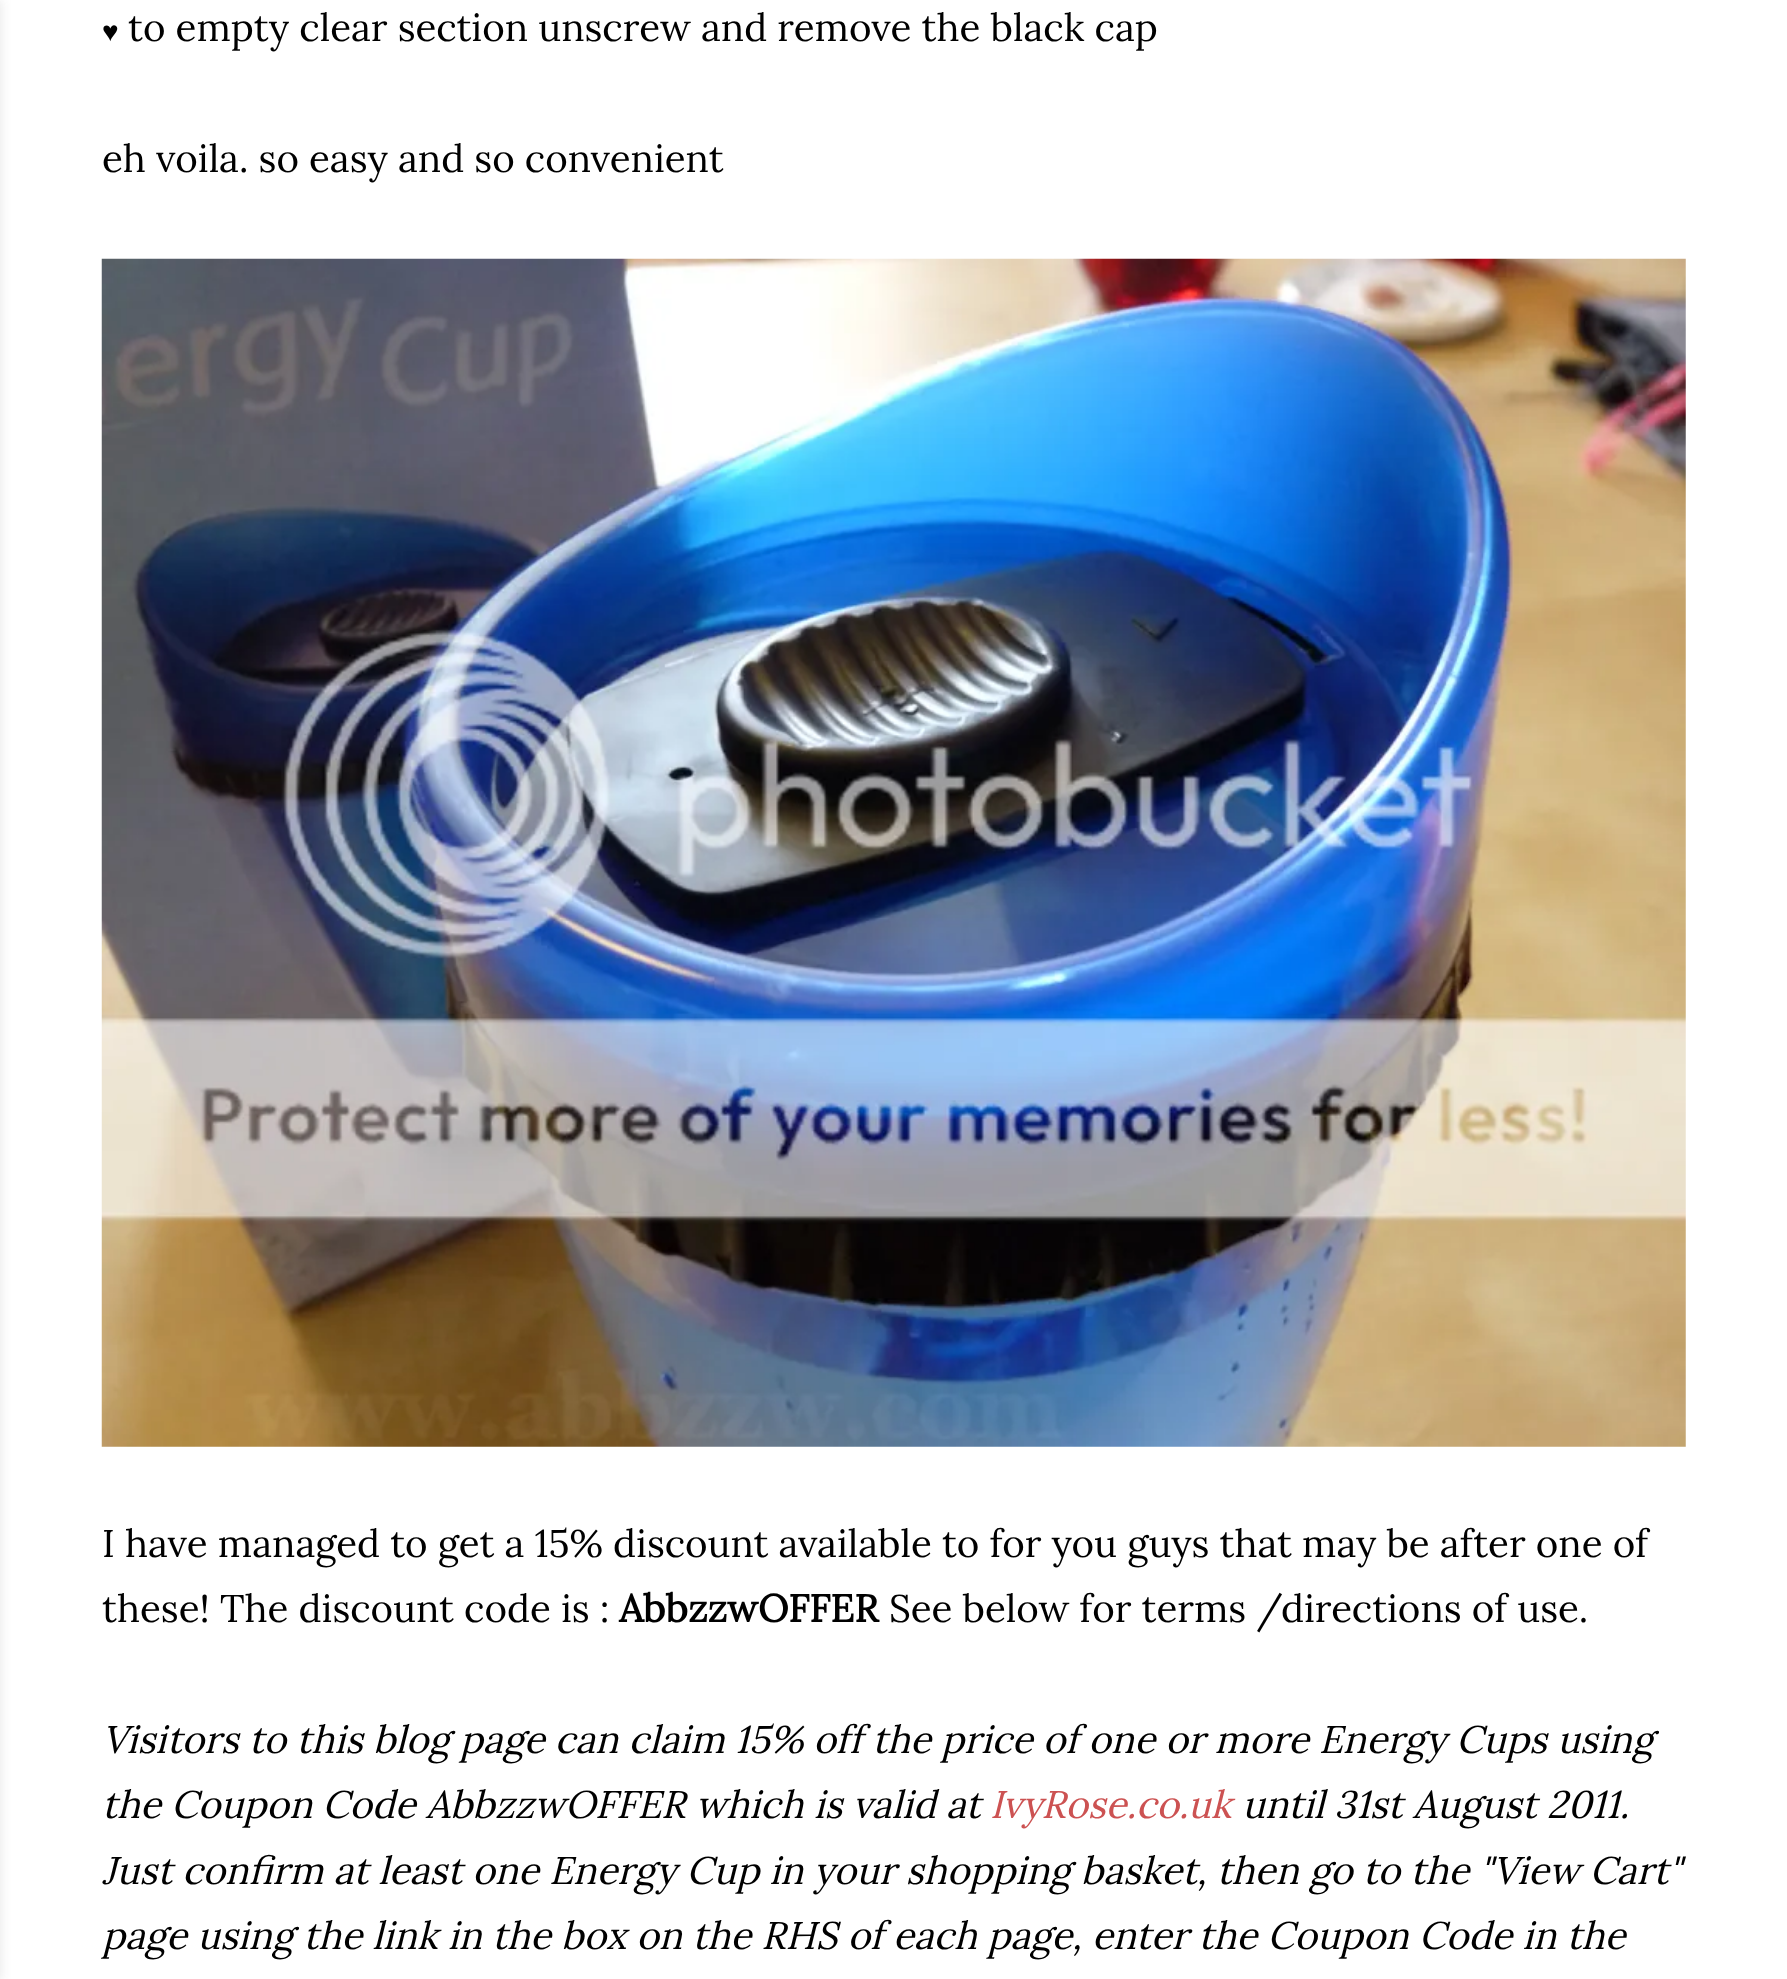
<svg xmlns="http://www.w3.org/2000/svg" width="1787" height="1979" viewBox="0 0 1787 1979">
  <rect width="100%" height="100%" fill="rgb(255,255,255)"/>
  <rect x="-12" y="0" width="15" height="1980" fill="rgba(102,102,102,0.1)" filter="blur(4px)"/>
  <text x="102" y="41" font-family="Liberation Serif" font-size="28" fill="rgb(0,0,0)">♥</text>
  <g font-family="Lora" font-size="38.5" fill="rgb(0,0,0)">
    <text x="128" y="41">to empty clear section unscrew and remove the black cap</text>
    <text x="102" y="172">eh voila. so easy and so convenient</text>
  </g>
  <image x="101" y="258" width="1585" height="1189" href="pic1.png"/>
  <g font-family="Lora" font-size="38.5" fill="rgb(0,0,0)">
    <text>
      <tspan x="102" y="1557">I have managed to get a 15% discount available to for you guys that may be after one of</tspan>
      <tspan x="102" y="1622">these! The discount code is :</tspan>
    </text>
  </g>
  <text x="619" y="1622" font-family="Lora" font-size="38.5" font-weight="bold" fill="rgb(0,0,0)">AbbzzwOFFER</text>
  <text x="889" y="1622" font-family="Lora" font-size="38.5" fill="rgb(0,0,0)">See below for terms /directions of use.</text>
  <g font-family="Lora" font-size="38.5" font-style="italic" fill="rgb(0,0,0)">
    <text>
      <tspan x="102" y="1753">Visitors to this blog page can claim 15% off the price of one or more Energy Cups using</tspan>
      <tspan x="102" y="1818">the Coupon Code AbbzzwOFFER which is valid at</tspan>
    </text>
  </g>
  <text x="990" y="1818" font-family="Lora" font-size="38.5" font-style="italic" fill="rgb(204,82,82)">IvyRose.co.uk</text>
  <g font-family="Lora" font-size="38.5" font-style="italic" fill="rgb(0,0,0)">
    <text x="1242" y="1818">until 31st August 2011.</text>
    <text>
      <tspan x="102" y="1884">Just confirm at least one Energy Cup in your shopping basket, then go to the "View Cart"</tspan>
      <tspan x="102" y="1949">page using the link in the box on the RHS of each page, enter the Coupon Code in the</tspan>
    </text>
  </g>
</svg>
